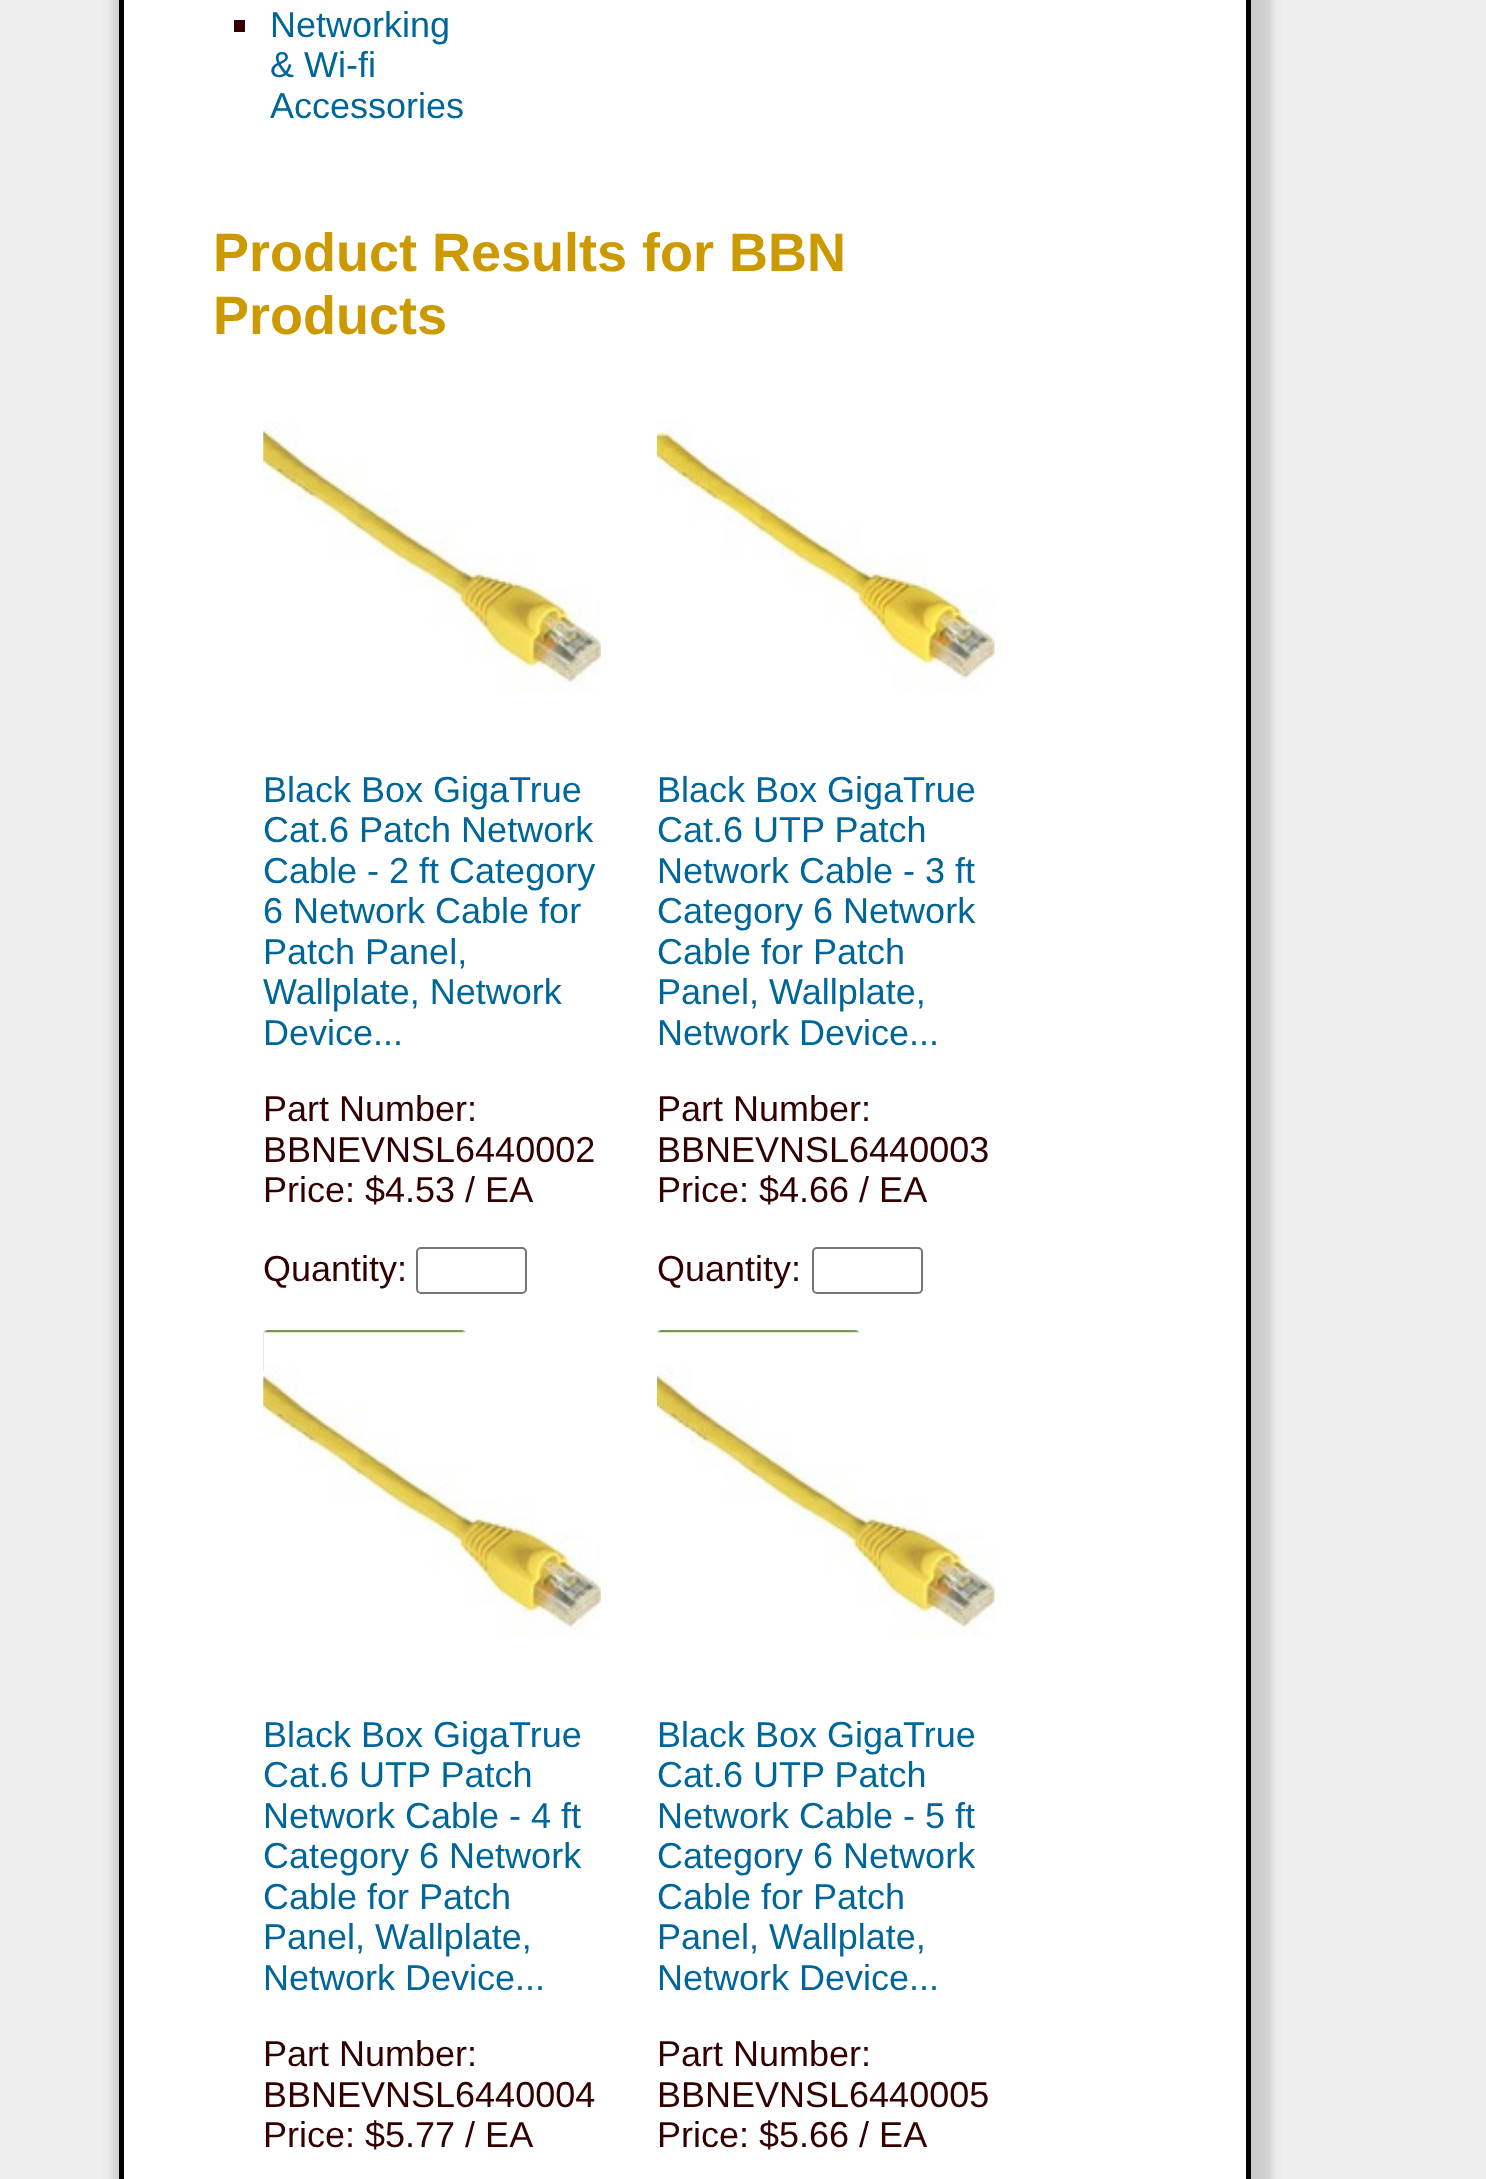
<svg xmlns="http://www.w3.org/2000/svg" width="1486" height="2179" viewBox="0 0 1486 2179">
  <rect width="100%" height="100%" fill="rgb(238,238,238)"/>
  <rect x="113" y="-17" width="1158" height="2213" fill="rgb(204,204,204)" filter="blur(5.5px)"/>
  <rect x="121.5" y="-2.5" width="1127" height="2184" fill="rgb(255,255,255)" stroke="rgb(0,0,0)" stroke-width="5"/>
  <rect x="234" y="20" width="11" height="12" fill="rgb(51,0,0)"/>
  <g font-family="Liberation Sans" font-size="36" fill="rgb(0,102,153)">
    <text>
      <tspan x="270" y="37">Networking</tspan>
      <tspan x="270" y="77">&amp; Wi-fi</tspan>
      <tspan x="270" y="118">Accessories</tspan>
    </text>
  </g>
  <g font-family="Liberation Sans" font-size="54" font-weight="bold" fill="rgb(204,153,0)">
    <text>
      <tspan x="213" y="271">Product Results for BBN</tspan>
      <tspan x="213" y="334">Products</tspan>
    </text>
  </g>
  <image x="263" y="421" width="338" height="271" href="pic1.png"/>
  <g font-family="Liberation Sans" font-size="36" fill="rgb(0,102,153)">
    <text>
      <tspan x="263" y="802">Black Box GigaTrue</tspan>
      <tspan x="263" y="842">Cat.6 Patch Network</tspan>
      <tspan x="263" y="883">Cable - 2 ft Category</tspan>
      <tspan x="263" y="923">6 Network Cable for</tspan>
      <tspan x="263" y="964">Patch Panel,</tspan>
      <tspan x="263" y="1004">Wallplate, Network</tspan>
      <tspan x="263" y="1045">Device...</tspan>
    </text>
  </g>
  <g font-family="Liberation Sans" font-size="36" fill="rgb(51,0,0)">
    <text>
      <tspan x="263" y="1121">Part Number:</tspan>
      <tspan x="263" y="1162">BBNEVNSL6440002</tspan>
      <tspan x="263" y="1202">Price: $4.53 / EA</tspan>
    </text>
    <text x="263" y="1281">Quantity:</text>
  </g>
  <rect x="417" y="1248" width="109" height="45" rx="4" fill="none" stroke="rgb(118,118,118)" stroke-width="2"/>
  <image x="263" y="1330" width="203" height="43" href="pic2.png"/>
  <image x="657" y="420" width="338" height="271" href="pic3.png"/>
  <g font-family="Liberation Sans" font-size="36" fill="rgb(0,102,153)">
    <text>
      <tspan x="657" y="802">Black Box GigaTrue</tspan>
      <tspan x="657" y="842">Cat.6 UTP Patch</tspan>
      <tspan x="657" y="883">Network Cable - 3 ft</tspan>
      <tspan x="657" y="923">Category 6 Network</tspan>
      <tspan x="657" y="964">Cable for Patch</tspan>
      <tspan x="657" y="1004">Panel, Wallplate,</tspan>
      <tspan x="657" y="1045">Network Device...</tspan>
    </text>
  </g>
  <g font-family="Liberation Sans" font-size="36" fill="rgb(51,0,0)">
    <text>
      <tspan x="657" y="1121">Part Number:</tspan>
      <tspan x="657" y="1162">BBNEVNSL6440003</tspan>
      <tspan x="657" y="1202">Price: $4.66 / EA</tspan>
    </text>
    <text x="657" y="1281">Quantity:</text>
  </g>
  <rect x="813" y="1248" width="109" height="45" rx="4" fill="none" stroke="rgb(118,118,118)" stroke-width="2"/>
  <image x="657" y="1330" width="203" height="3" href="pic4.png"/>
  <image x="263" y="1332" width="338" height="305" href="pic5.png"/>
  <g font-family="Liberation Sans" font-size="36" fill="rgb(0,102,153)">
    <text>
      <tspan x="263" y="1747">Black Box GigaTrue</tspan>
      <tspan x="263" y="1787">Cat.6 UTP Patch</tspan>
      <tspan x="263" y="1828">Network Cable - 4 ft</tspan>
      <tspan x="263" y="1868">Category 6 Network</tspan>
      <tspan x="263" y="1909">Cable for Patch</tspan>
      <tspan x="263" y="1949">Panel, Wallplate,</tspan>
      <tspan x="263" y="1990">Network Device...</tspan>
    </text>
  </g>
  <g font-family="Liberation Sans" font-size="36" fill="rgb(51,0,0)">
    <text>
      <tspan x="263" y="2066">Part Number:</tspan>
      <tspan x="263" y="2107">BBNEVNSL6440004</tspan>
      <tspan x="263" y="2147">Price: $5.77 / EA</tspan>
    </text>
  </g>
  <image x="657" y="1332" width="338" height="305" href="pic6.png"/>
  <g font-family="Liberation Sans" font-size="36" fill="rgb(0,102,153)">
    <text>
      <tspan x="657" y="1747">Black Box GigaTrue</tspan>
      <tspan x="657" y="1787">Cat.6 UTP Patch</tspan>
      <tspan x="657" y="1828">Network Cable - 5 ft</tspan>
      <tspan x="657" y="1868">Category 6 Network</tspan>
      <tspan x="657" y="1909">Cable for Patch</tspan>
      <tspan x="657" y="1949">Panel, Wallplate,</tspan>
      <tspan x="657" y="1990">Network Device...</tspan>
    </text>
  </g>
  <g font-family="Liberation Sans" font-size="36" fill="rgb(51,0,0)">
    <text>
      <tspan x="657" y="2066">Part Number:</tspan>
      <tspan x="657" y="2107">BBNEVNSL6440005</tspan>
      <tspan x="657" y="2147">Price: $5.66 / EA</tspan>
    </text>
  </g>
</svg>
